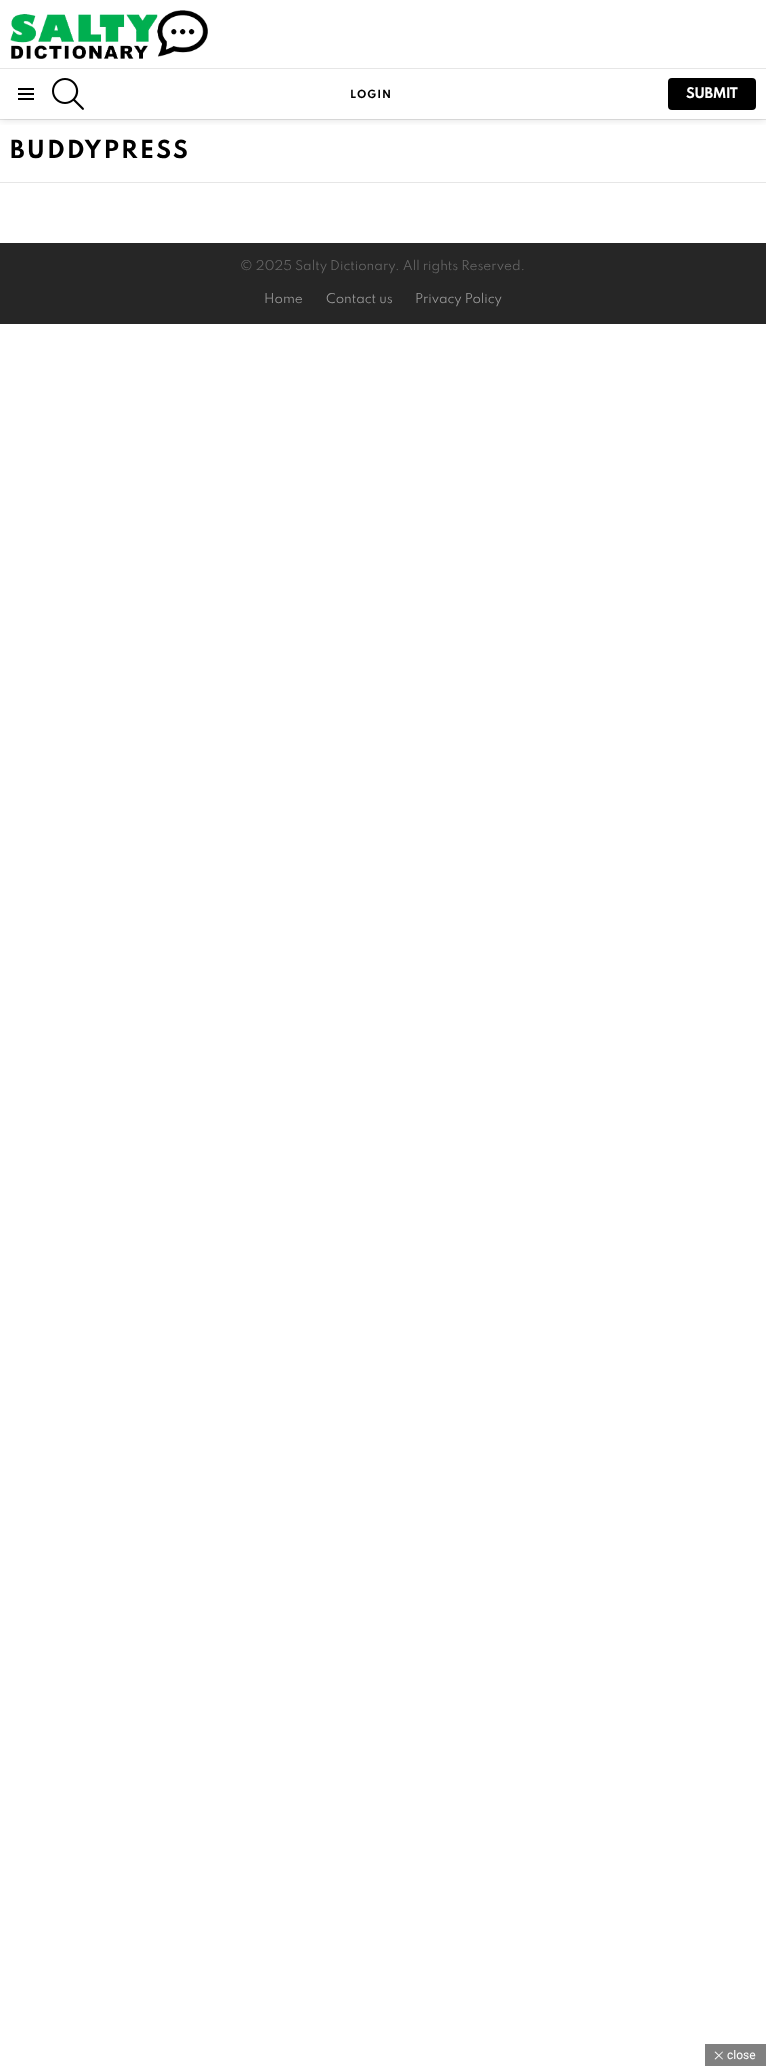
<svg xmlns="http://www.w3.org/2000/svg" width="766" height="2066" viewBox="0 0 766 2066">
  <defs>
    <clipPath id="clip1"><rect x="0" y="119" width="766" height="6"/></clipPath>
  </defs>
  <rect width="100%" height="100%" fill="rgb(255,255,255)"/>
  <rect x="0" y="119" width="766" height="1" fill="rgb(230,230,230)"/>
  <g clip-path="url(#clip1)">
    <rect x="0" y="69" width="766" height="50" fill="rgba(0,0,0,0.15)" filter="blur(5px)"/>
  </g>
  <image x="10" y="10" width="198" height="49" href="pic1.png"/>
  <rect x="0" y="62" width="766" height="6" fill="rgb(255,255,255)"/>
  <rect x="0" y="68" width="766" height="1" fill="rgb(230,230,230)"/>
  <image x="18" y="88" width="16" height="12" href="pic2.png"/>
  <image x="52" y="78" width="32" height="32" href="pic3.png"/>
  <text x="350" y="98" font-family="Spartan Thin" font-size="10" font-weight="bold" letter-spacing="1" fill="rgb(0,0,0)">LOGIN</text>
  <rect x="668" y="78" width="88" height="32" rx="4" fill="rgb(0,0,0)"/>
  <text x="686" y="98" font-family="Spartan Thin" font-size="13" font-weight="bold" letter-spacing="-0.5" fill="rgb(255,255,255)">SUBMIT</text>
  <text x="10" y="158" font-family="Spartan Thin" font-size="22" font-weight="bold" letter-spacing="2.1" fill="rgb(0,0,0)">BUDDYPRESS</text>
  <rect x="0" y="182" width="766" height="1" fill="rgb(230,230,230)"/>
  <rect x="0" y="243" width="766" height="81" fill="rgb(38,38,38)"/>
  <text x="240" y="270" font-family="Spartan Thin" font-size="12" fill="rgb(102,102,102)">© 2025 Salty Dictionary. All rights Reserved.</text>
  <g font-family="Spartan Thin" font-size="12" fill="rgb(153,153,153)">
    <text x="264" y="303">Home</text>
    <text x="326" y="303">Contact us</text>
    <text x="415" y="303">Privacy Policy</text>
  </g>
  <rect x="705" y="2044" width="61" height="22" fill="rgb(128,128,128)"/>
  <path d="M715.5 2051.5L723 2059L722.5 2059.5L714.5 2052Z" fill="rgb(255,255,255)"/>
  <text x="727" y="2059" font-family="Roboto" font-size="12" fill="rgb(255,255,255)">close</text>
  <path d="M722.5 2051.5L723 2052L715.5 2059.5L714.5 2059Z" fill="rgb(255,255,255)"/>
</svg>
